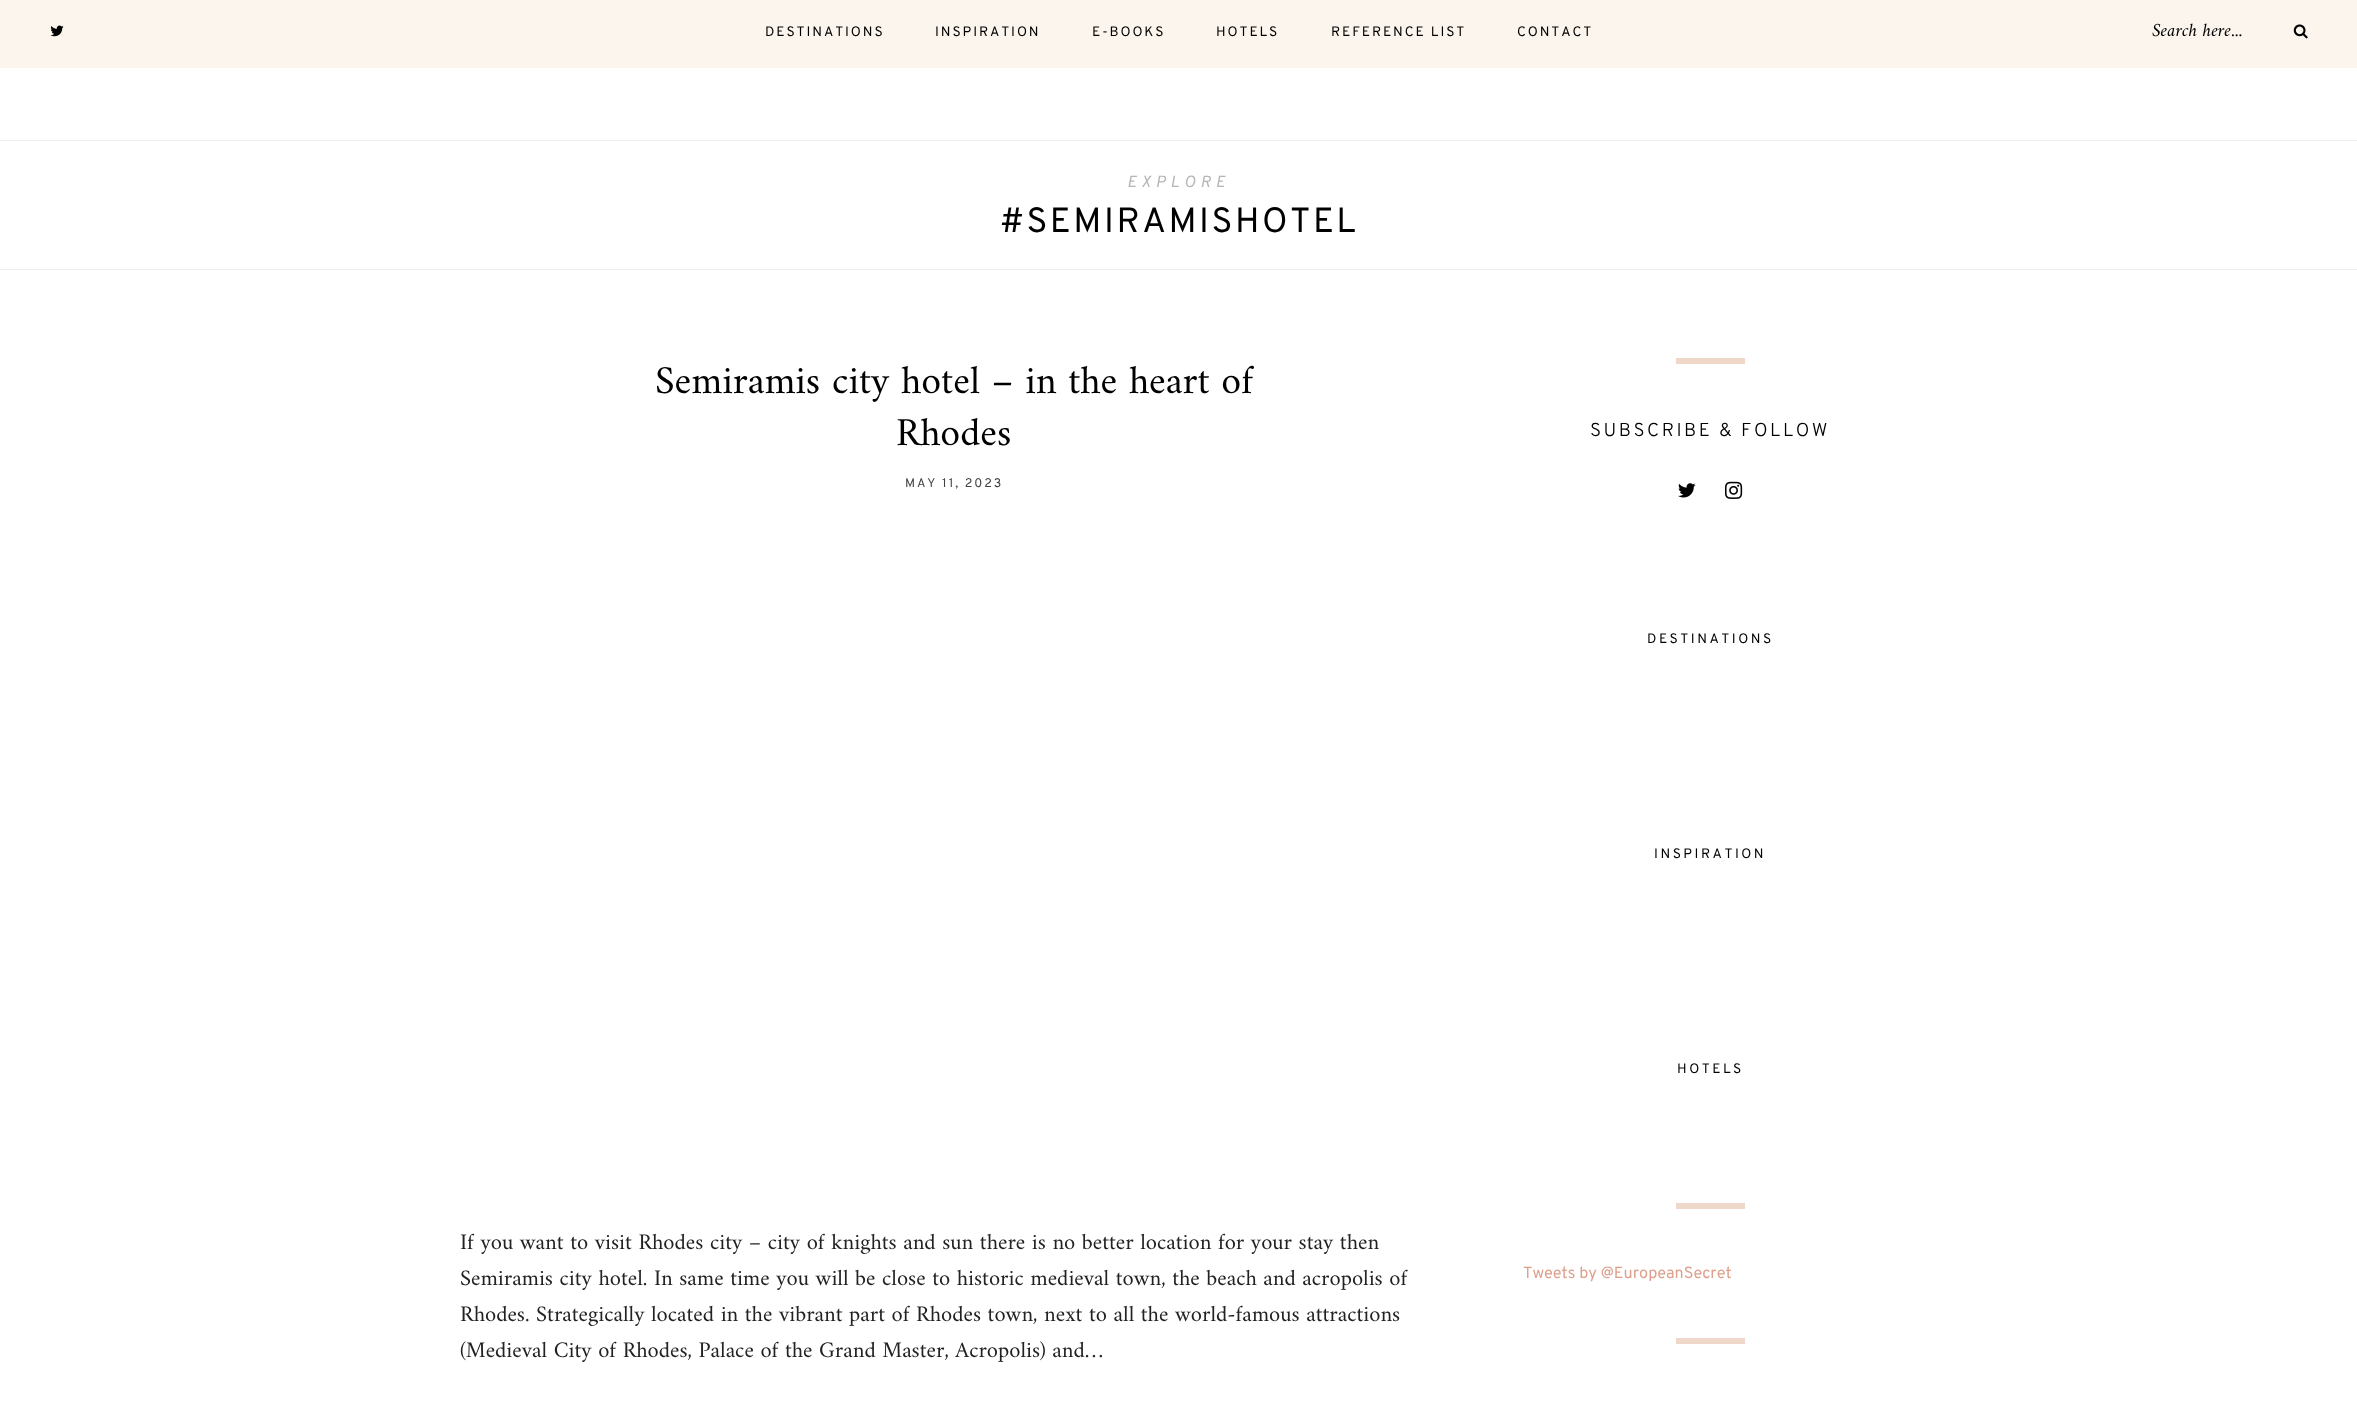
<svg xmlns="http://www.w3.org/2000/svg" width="2357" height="1425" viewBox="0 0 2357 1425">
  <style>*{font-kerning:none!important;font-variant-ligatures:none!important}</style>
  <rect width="100%" height="100%" fill="rgb(255,255,255)"/>
  <rect x="0" y="0" width="2357" height="68" fill="rgb(251,245,237)"/>
  <image x="50" y="25" width="14" height="12" href="pic1.png"/>
  <g font-family="Overpass" font-size="13.75" letter-spacing="1.9" fill="rgb(0,0,0)">
    <text x="765" y="36">DESTINATIONS</text>
    <text x="935" y="36">INSPIRATION</text>
    <text x="1092" y="36">E-BOOKS</text>
    <text x="1216" y="36">HOTELS</text>
    <text x="1331" y="36">REFERENCE LIST</text>
    <text x="1517" y="36">CONTACT</text>
  </g>
  <text x="2152" y="36" font-family="Amiri" font-size="18.75" font-style="italic" fill="rgb(0,0,0)">Search here...</text>
  <image x="2293" y="24" width="15" height="15" href="pic2.png"/>
  <rect x="0" y="140" width="2357" height="1" fill="rgb(238,238,238)"/>
  <rect x="0" y="269" width="2357" height="1" fill="rgb(238,238,238)"/>
  <text x="1127" y="187" font-family="Overpass" font-size="16.25" font-style="italic" letter-spacing="5" fill="rgb(181,181,181)">EXPLORE</text>
  <text x="1000" y="232" font-family="Overpass" font-size="35" letter-spacing="2.5" fill="rgb(0,0,0)">#SEMIRAMISHOTEL</text>
  <g font-family="Amiri" font-size="40" fill="rgb(0,0,0)">
    <text x="655" y="393">Semiramis city hotel – in the heart of</text>
    <text x="896" y="445">Rhodes</text>
  </g>
  <text x="905" y="487" font-family="Overpass" font-size="12.5" letter-spacing="1.9" fill="rgb(65,65,65)">MAY 11, 2023</text>
  <g font-family="Amiri" font-size="22.5" fill="rgb(34,34,34)">
    <text>
      <tspan x="460" y="1249">If you want to visit Rhodes city – city of knights and sun there is no better location for your stay then</tspan>
      <tspan x="460" y="1285">Semiramis city hotel. In same time you will be close to historic medieval town, the beach and acropolis of</tspan>
      <tspan x="460" y="1321">Rhodes. Strategically located in the vibrant part of Rhodes town, next to all the world-famous attractions</tspan>
      <tspan x="460" y="1357">(Medieval City of Rhodes, Palace of the Grand Master, Acropolis) and…</tspan>
    </text>
  </g>
  <rect x="1676" y="358" width="69" height="6" fill="rgb(239,216,202)"/>
  <text x="1590" y="436" font-family="Overpass" font-size="18.75" font-weight="300" letter-spacing="2.5" fill="rgb(0,0,0)">SUBSCRIBE &amp; FOLLOW</text>
  <image x="1678" y="483" width="18" height="15" href="pic3.png"/>
  <image x="1725" y="481" width="18" height="18" href="pic4.png"/>
  <g font-family="Overpass" font-size="13.75" letter-spacing="2.5" fill="rgb(0,0,0)">
    <text x="1647" y="643">DESTINATIONS</text>
    <text x="1654" y="858">INSPIRATION</text>
    <text x="1677" y="1073">HOTELS</text>
  </g>
  <rect x="1676" y="1203" width="69" height="6" fill="rgb(239,216,202)"/>
  <text x="1523" y="1278" font-family="Overpass" font-size="16.25" fill="rgb(222,160,140)">Tweets by @EuropeanSecret</text>
  <rect x="1676" y="1338" width="69" height="6" fill="rgb(239,216,202)"/>
</svg>
